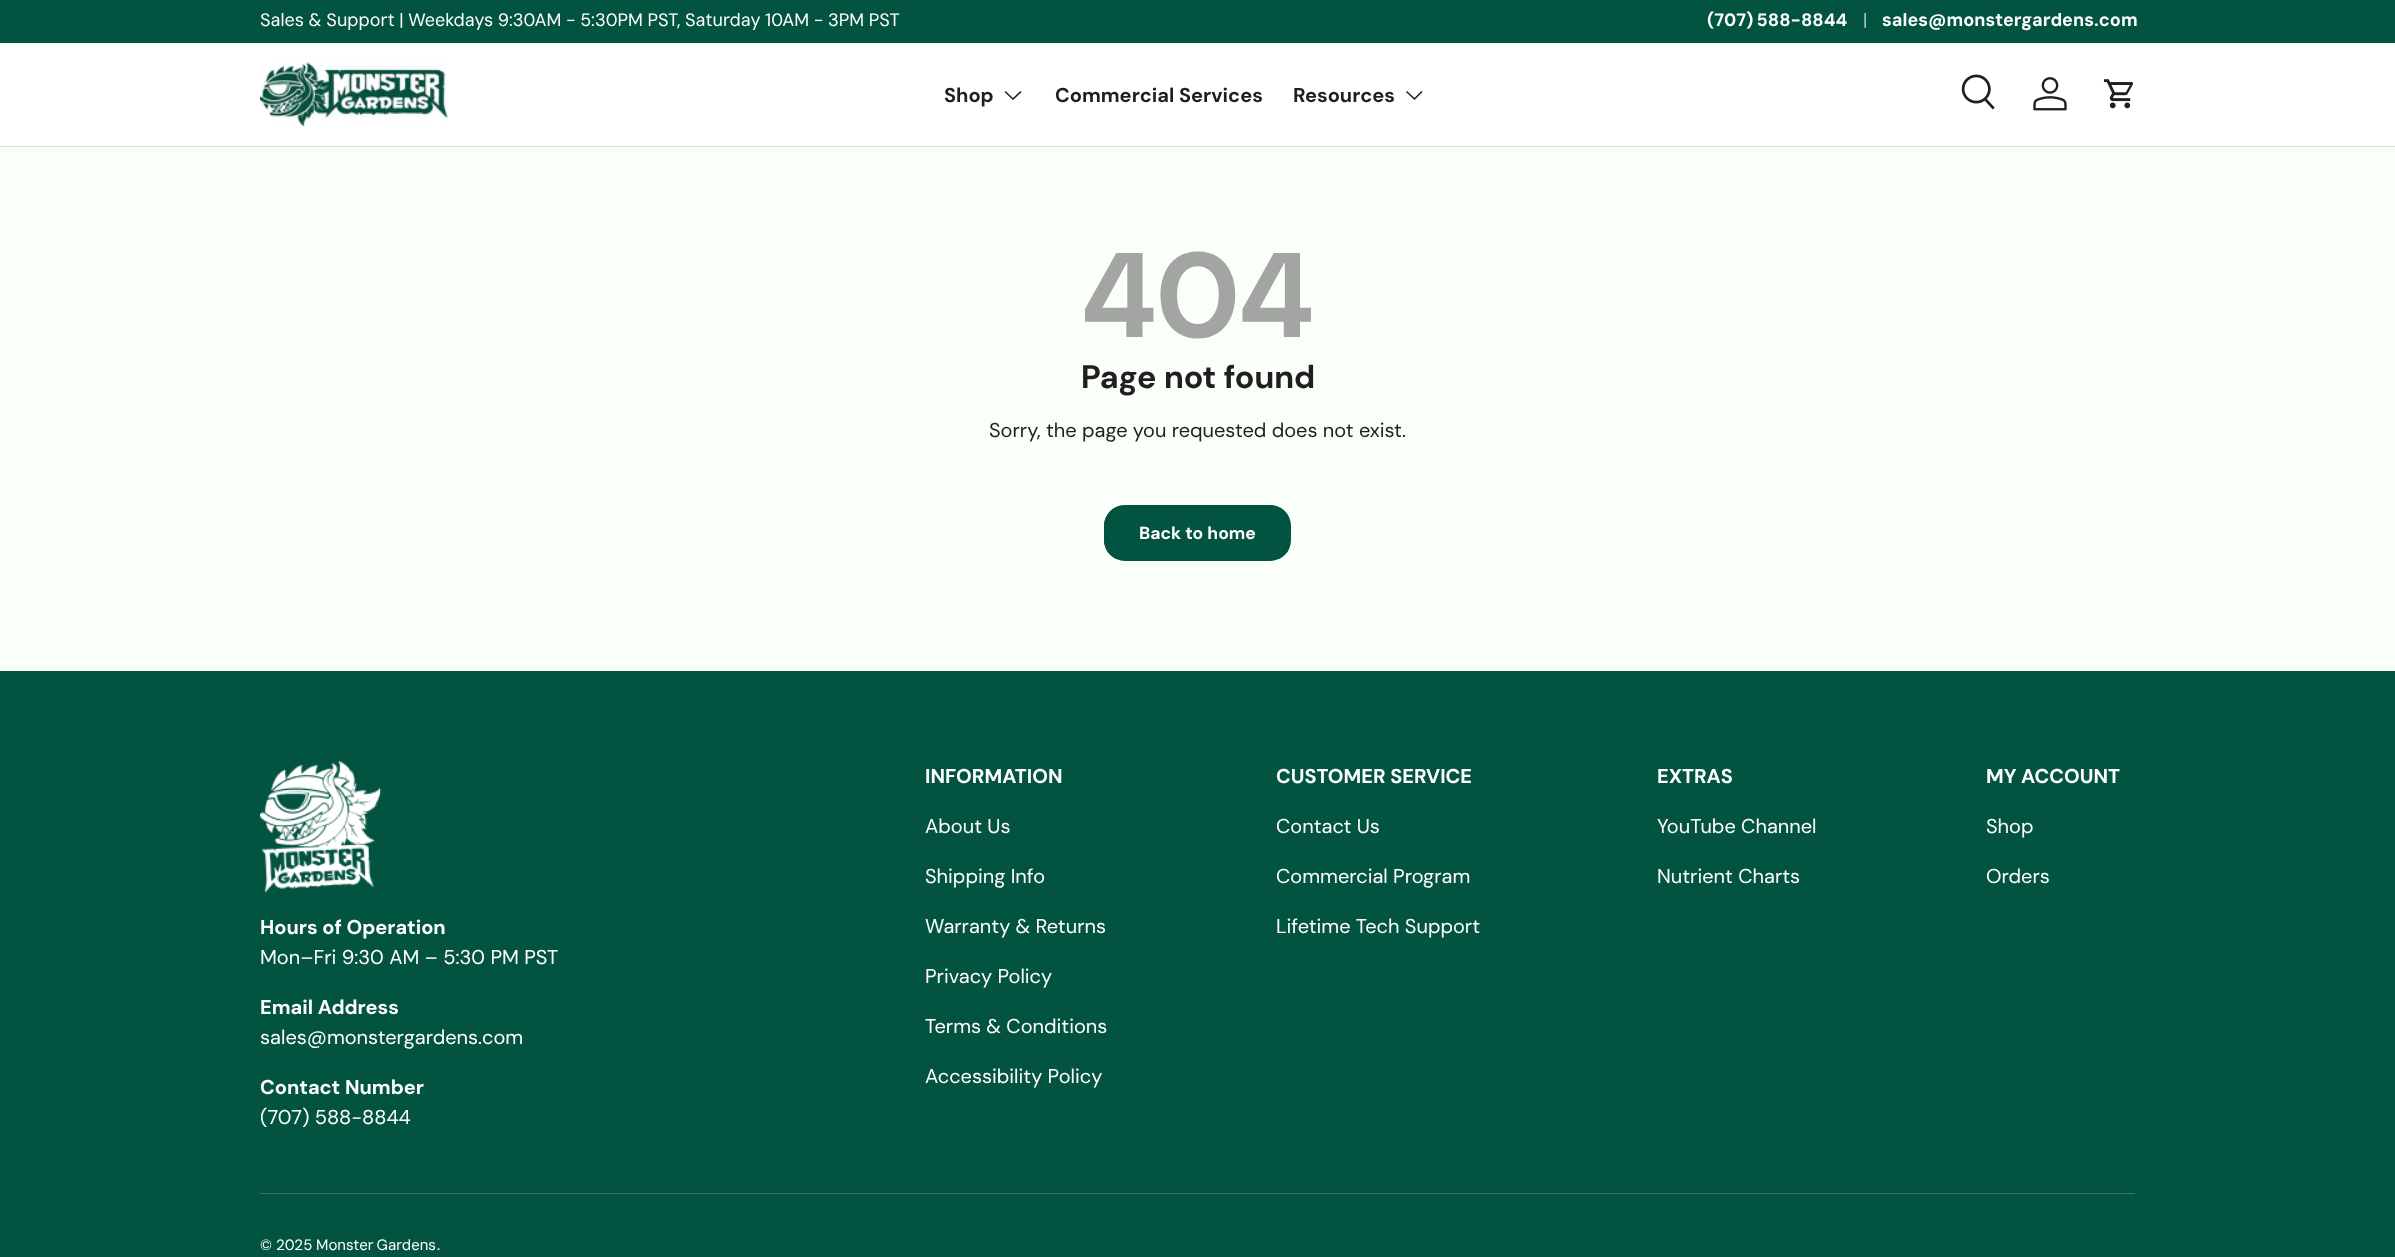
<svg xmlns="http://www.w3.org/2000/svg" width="2395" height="1257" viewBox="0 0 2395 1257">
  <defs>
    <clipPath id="clip1"><rect x="1104" y="505" width="187" height="56" rx="21"/></clipPath>
    <linearGradient id="g1" gradientUnits="userSpaceOnUse" x1="751" y1="467" x2="1279" y2="599"><stop offset="0.6" stop-color="rgb(45,120,104)"/><stop offset="0.6" stop-color="rgb(3,83,65)"/><stop offset="1" stop-color="rgb(3,83,65)"/></linearGradient>
  </defs>
  <rect width="100%" height="100%" fill="rgb(251,255,249)"/>
  <rect x="0" y="0" width="2395" height="43" fill="rgb(3,83,65)"/>
  <text x="260" y="26" word-spacing="-0.25" font-family="'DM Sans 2'" font-size="18" fill="rgb(255,255,255)">Sales &amp; Support | Weekdays 9:30AM - 5:30PM PST, Saturday 10AM - 3PM PST</text>
  <text x="1707" y="26" word-spacing="-1" font-family="'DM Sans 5'" font-size="18" font-weight="bold" fill="rgb(255,255,255)">(707) 588-8844</text>
  <text x="1863" y="26" font-family="'DM Sans 2'" font-size="18" fill="rgb(179,203,198)">|</text>
  <text x="1882" y="26" font-family="'DM Sans 5'" font-size="18" font-weight="bold" fill="rgb(255,255,255)">sales@monstergardens.com</text>
  <rect x="0" y="43" width="2395" height="105" fill="rgb(255,255,255)"/>
  <rect x="0" y="146" width="2395" height="1" fill="rgb(221,221,221)"/>
  <image x="260" y="62" width="188" height="65" href="pic1.png"/>
  <text x="944" y="102" font-family="'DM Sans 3'" font-size="20" font-weight="bold" fill="rgb(31,31,31)">Shop</text>
  <path d="M1021 91.5L1013 99L1005 91.5" fill="none" stroke="rgb(31,31,31)" stroke-width="1.6"/>
  <g font-family="'DM Sans 3'" font-size="20" font-weight="bold" fill="rgb(31,31,31)">
    <text x="1055" y="102">Commercial Services</text>
    <text x="1293" y="102">Resources</text>
  </g>
  <path d="M1422 91.5L1414.5 99L1406.5 91.5" fill="none" stroke="rgb(31,31,31)" stroke-width="1.6"/>
  <image x="1961" y="74" width="34" height="36" href="pic2.png"/>
  <image x="2033" y="77" width="34" height="34" href="pic3.png"/>
  <image x="2103" y="79" width="31" height="30" href="pic4.png"/>
  <text x="1082" y="337" font-family="DM Sans" font-size="120" font-weight="bold" fill="rgb(163,165,162)">404</text>
  <text x="1081" y="388" font-family="'DM Sans 2'" font-size="32.5" font-weight="bold" fill="rgb(31,31,31)">Page not found</text>
  <text x="989" y="437" font-family="DM Sans" font-size="20" fill="rgb(31,31,31)">Sorry, the page you requested does not exist.</text>
  <g clip-path="url(#clip1)">
    <rect x="1104" y="508" width="185" height="51" fill="url(#g1)"/>
  </g>
  <rect x="1105.5" y="506.5" width="184" height="53" rx="19.5" fill="none" stroke="rgb(3,83,65)" stroke-width="3"/>
  <text x="1139" y="539" font-family="'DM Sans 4'" font-size="17.5" font-weight="bold" fill="rgb(255,255,255)">Back to home</text>
  <rect x="0" y="671" width="2395" height="586" fill="rgb(3,83,65)"/>
  <text x="925" y="783" font-family="'DM Sans 3'" font-size="20" font-weight="bold" fill="rgb(255,255,255)">INFORMATION</text>
  <g font-family="DM Sans" font-size="20" fill="rgb(255,255,255)">
    <text x="925" y="833">About Us</text>
    <text x="925" y="883">Shipping Info</text>
    <text x="925" y="933">Warranty &amp; Returns</text>
    <text x="925" y="983">Privacy Policy</text>
    <text x="925" y="1033">Terms &amp; Conditions</text>
    <text x="925" y="1083">Accessibility Policy</text>
  </g>
  <text x="1276" y="783" font-family="'DM Sans 3'" font-size="20" font-weight="bold" fill="rgb(255,255,255)">CUSTOMER SERVICE</text>
  <g font-family="DM Sans" font-size="20" fill="rgb(255,255,255)">
    <text x="1276" y="833">Contact Us</text>
    <text x="1276" y="883">Commercial Program</text>
    <text x="1276" y="933">Lifetime Tech Support</text>
  </g>
  <text x="1657" y="783" font-family="'DM Sans 3'" font-size="20" font-weight="bold" fill="rgb(255,255,255)">EXTRAS</text>
  <g font-family="DM Sans" font-size="20" fill="rgb(255,255,255)">
    <text x="1657" y="833">YouTube Channel</text>
    <text x="1657" y="883">Nutrient Charts</text>
  </g>
  <text x="1986" y="783" font-family="'DM Sans 3'" font-size="20" font-weight="bold" fill="rgb(255,255,255)">MY ACCOUNT</text>
  <g font-family="DM Sans" font-size="20" fill="rgb(255,255,255)">
    <text x="1986" y="833">Shop</text>
    <text x="1986" y="883">Orders</text>
  </g>
  <image x="260" y="761" width="122" height="132" href="pic5.png"/>
  <text x="260" y="934" font-family="'DM Sans 3'" font-size="20" font-weight="bold" fill="rgb(255,255,255)">Hours of Operation</text>
  <text x="260" y="964" font-family="DM Sans" font-size="20" fill="rgb(255,255,255)">Mon–Fri 9:30 AM – 5:30 PM PST</text>
  <text x="260" y="1014" font-family="'DM Sans 3'" font-size="20" font-weight="bold" fill="rgb(255,255,255)">Email Address</text>
  <text x="260" y="1044" font-family="DM Sans" font-size="20" fill="rgb(255,255,255)">sales@monstergardens.com</text>
  <text x="260" y="1094" font-family="'DM Sans 3'" font-size="20" font-weight="bold" fill="rgb(255,255,255)">Contact Number</text>
  <text x="260" y="1124" font-family="DM Sans" font-size="20" fill="rgb(255,255,255)">(707) 588-8844</text>
  <rect x="260" y="1193" width="1875" height="1" fill="rgb(53,117,103)"/>
  <g font-family="'DM Sans 2'" font-size="15" fill="rgb(255,255,255)">
    <text x="260" y="1250">© 2025</text>
    <text x="316" y="1250" word-spacing="-1">Monster Gardens</text>
    <text x="437" y="1250">.</text>
  </g>
</svg>
